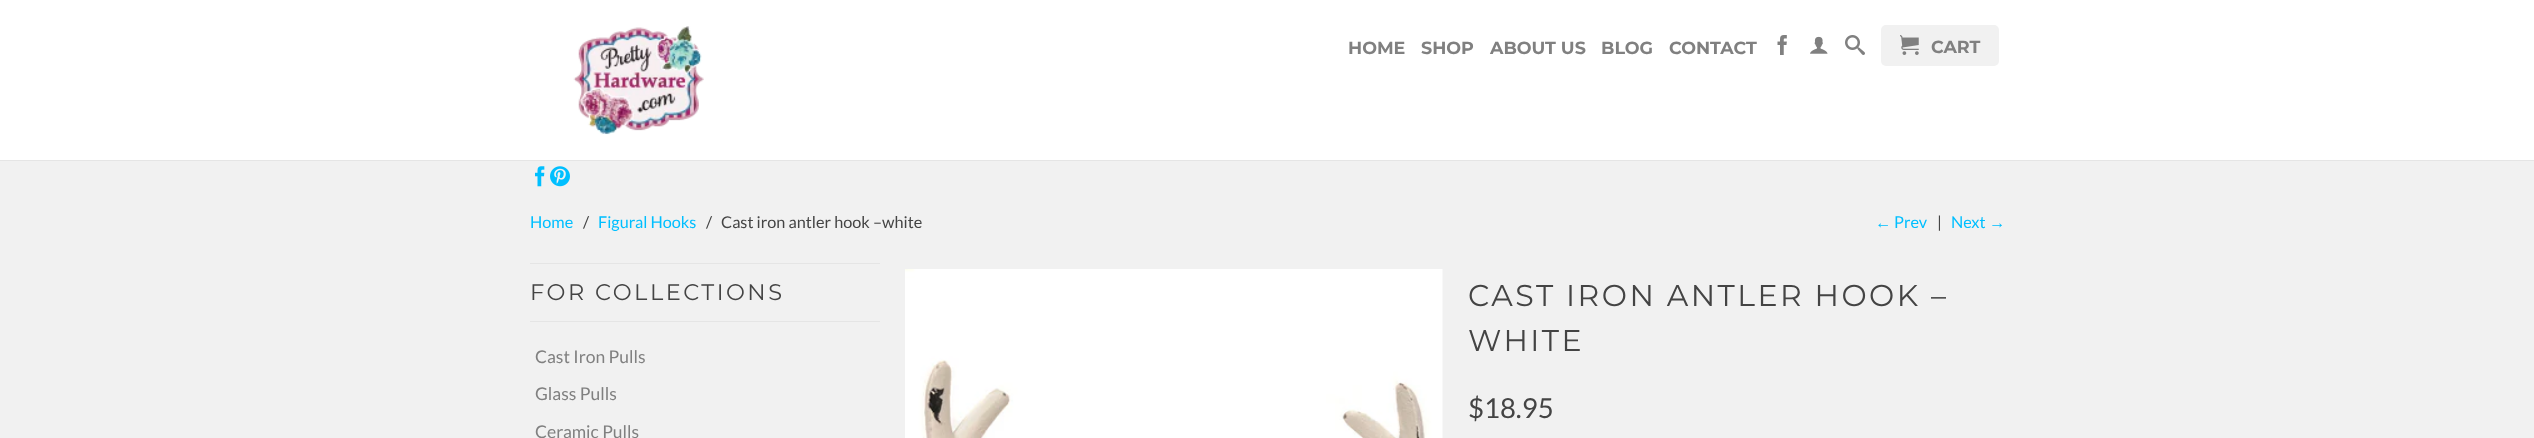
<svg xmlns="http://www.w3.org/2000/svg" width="2534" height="438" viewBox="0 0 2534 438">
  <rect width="100%" height="100%" fill="rgb(241,241,241)"/>
  <rect x="0" y="0" width="2534" height="160" fill="rgb(255,255,255)"/>
  <rect x="0" y="160" width="2534" height="1" fill="rgb(229,229,229)"/>
  <image x="573" y="26" width="131" height="109" href="pic1.png"/>
  <g font-family="Montserrat" font-size="17.5" font-weight="bold" fill="rgb(128,128,128)">
    <text x="1348" y="54">HOME</text>
    <text x="1421" y="54">SHOP</text>
    <text x="1490" y="54">ABOUT US</text>
    <text x="1601" y="54">BLOG</text>
    <text x="1669" y="54">CONTACT</text>
  </g>
  <image x="1777" y="35" width="10" height="20" href="pic2.png"/>
  <image x="1810" y="36" width="18" height="18" href="pic3.png"/>
  <image x="1845" y="35" width="20" height="20" href="pic4.png"/>
  <rect x="1881" y="25" width="118" height="41" rx="5" fill="rgb(241,241,241)"/>
  <image x="1900" y="35" width="19" height="20" href="pic5.png"/>
  <text x="1931" y="53" font-family="Montserrat" font-size="17.5" font-weight="bold" fill="rgb(128,128,128)">CART</text>
  <image x="535" y="166" width="10" height="21" href="pic6.png"/>
  <image x="550" y="166" width="20" height="21" href="pic7.png"/>
  <text x="530" y="228" font-family="Lato" font-size="16.25" fill="rgb(0,191,255)">Home</text>
  <text x="583" y="228" font-family="Lato" font-size="16.25" fill="rgb(68,68,68)">/</text>
  <text x="598" y="228" font-family="Lato" font-size="16.25" fill="rgb(0,191,255)">Figural Hooks</text>
  <g font-family="Lato" font-size="16.25" fill="rgb(68,68,68)">
    <text x="706" y="228">/</text>
    <text x="721" y="228">Cast iron antler hook –white</text>
  </g>
  <text x="1875" y="228" font-family="Liberation Serif" font-size="16.25" fill="rgb(0,191,255)">←</text>
  <text x="1894" y="228" font-family="Lato" font-size="16.25" fill="rgb(0,191,255)">Prev</text>
  <text x="1937" y="228" font-family="Lato" font-size="16.25" fill="rgb(68,68,68)">|</text>
  <text x="1951" y="228" font-family="Lato" font-size="16.25" fill="rgb(0,191,255)">Next</text>
  <text x="1989" y="228" font-family="Liberation Serif" font-size="16.25" fill="rgb(0,191,255)">→</text>
  <rect x="530" y="263" width="350" height="1" fill="rgb(229,229,229)"/>
  <rect x="530" y="321" width="350" height="1" fill="rgb(229,229,229)"/>
  <text x="530" y="300" font-family="Montserrat" font-size="22.5" letter-spacing="2.5" fill="rgb(68,68,68)">FOR COLLECTIONS</text>
  <g font-family="Lato" font-size="17.5" fill="rgb(128,128,128)">
    <text x="535" y="363">Cast Iron Pulls</text>
    <text x="535" y="400">Glass Pulls</text>
    <text x="535" y="438">Ceramic Pulls</text>
  </g>
  <image x="905" y="269" width="538" height="169" href="pic8.png"/>
  <g font-family="Montserrat" font-size="30" letter-spacing="2.5" fill="rgb(68,68,68)">
    <text>
      <tspan x="1468" y="306">CAST IRON ANTLER HOOK –</tspan>
      <tspan x="1468" y="351">WHITE</tspan>
    </text>
  </g>
  <text x="1468" y="418" font-family="Lato" font-size="27.5" fill="rgb(68,68,68)">$18.95</text>
</svg>
